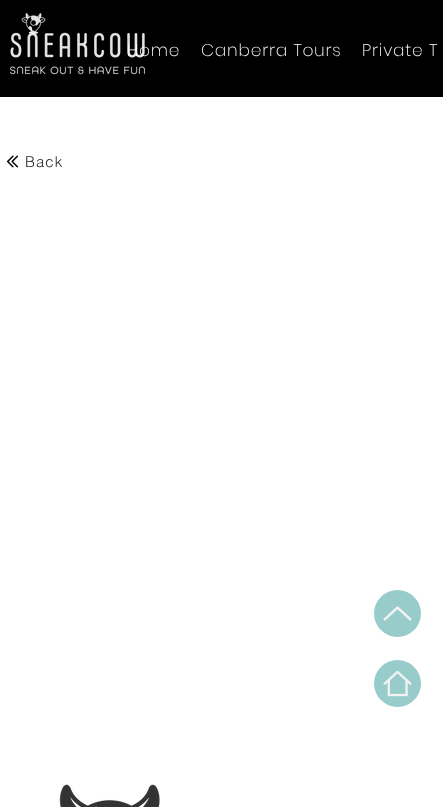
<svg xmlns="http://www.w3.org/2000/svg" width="443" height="807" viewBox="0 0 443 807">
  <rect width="100%" height="100%" fill="rgb(255,255,255)"/>
  <rect x="0" y="0" width="443" height="97" fill="rgb(0,0,0)"/>
  <image x="10" y="32" width="136" height="43" href="pic2.png"/>
  <image x="21" y="13" width="25" height="21" href="pic1.png"/>
  <g font-family="Poppins" font-size="17" font-weight="200" letter-spacing="0.8" fill="rgb(255,255,255)">
    <text x="127" y="56">Home</text>
    <text x="201" y="56">Canberra Tours</text>
    <text x="362" y="56">Private T</text>
  </g>
  <image x="6" y="155" width="13" height="13" href="pic3.png"/>
  <text x="25" y="167" font-family="helvetica" font-size="15" font-weight="300" letter-spacing="1" fill="rgb(40,38,38)">Back</text>
  <circle cx="397.5" cy="613.5" r="23.5" fill="rgb(152,204,203)"/>
  <image x="383" y="606" width="29" height="15" href="pic4.png"/>
  <circle cx="397.5" cy="683.5" r="23.5" fill="rgb(152,204,203)"/>
  <image x="383" y="670" width="29" height="27" href="pic5.png"/>
  <image x="59" y="784" width="101" height="23" href="pic6.png"/>
</svg>
